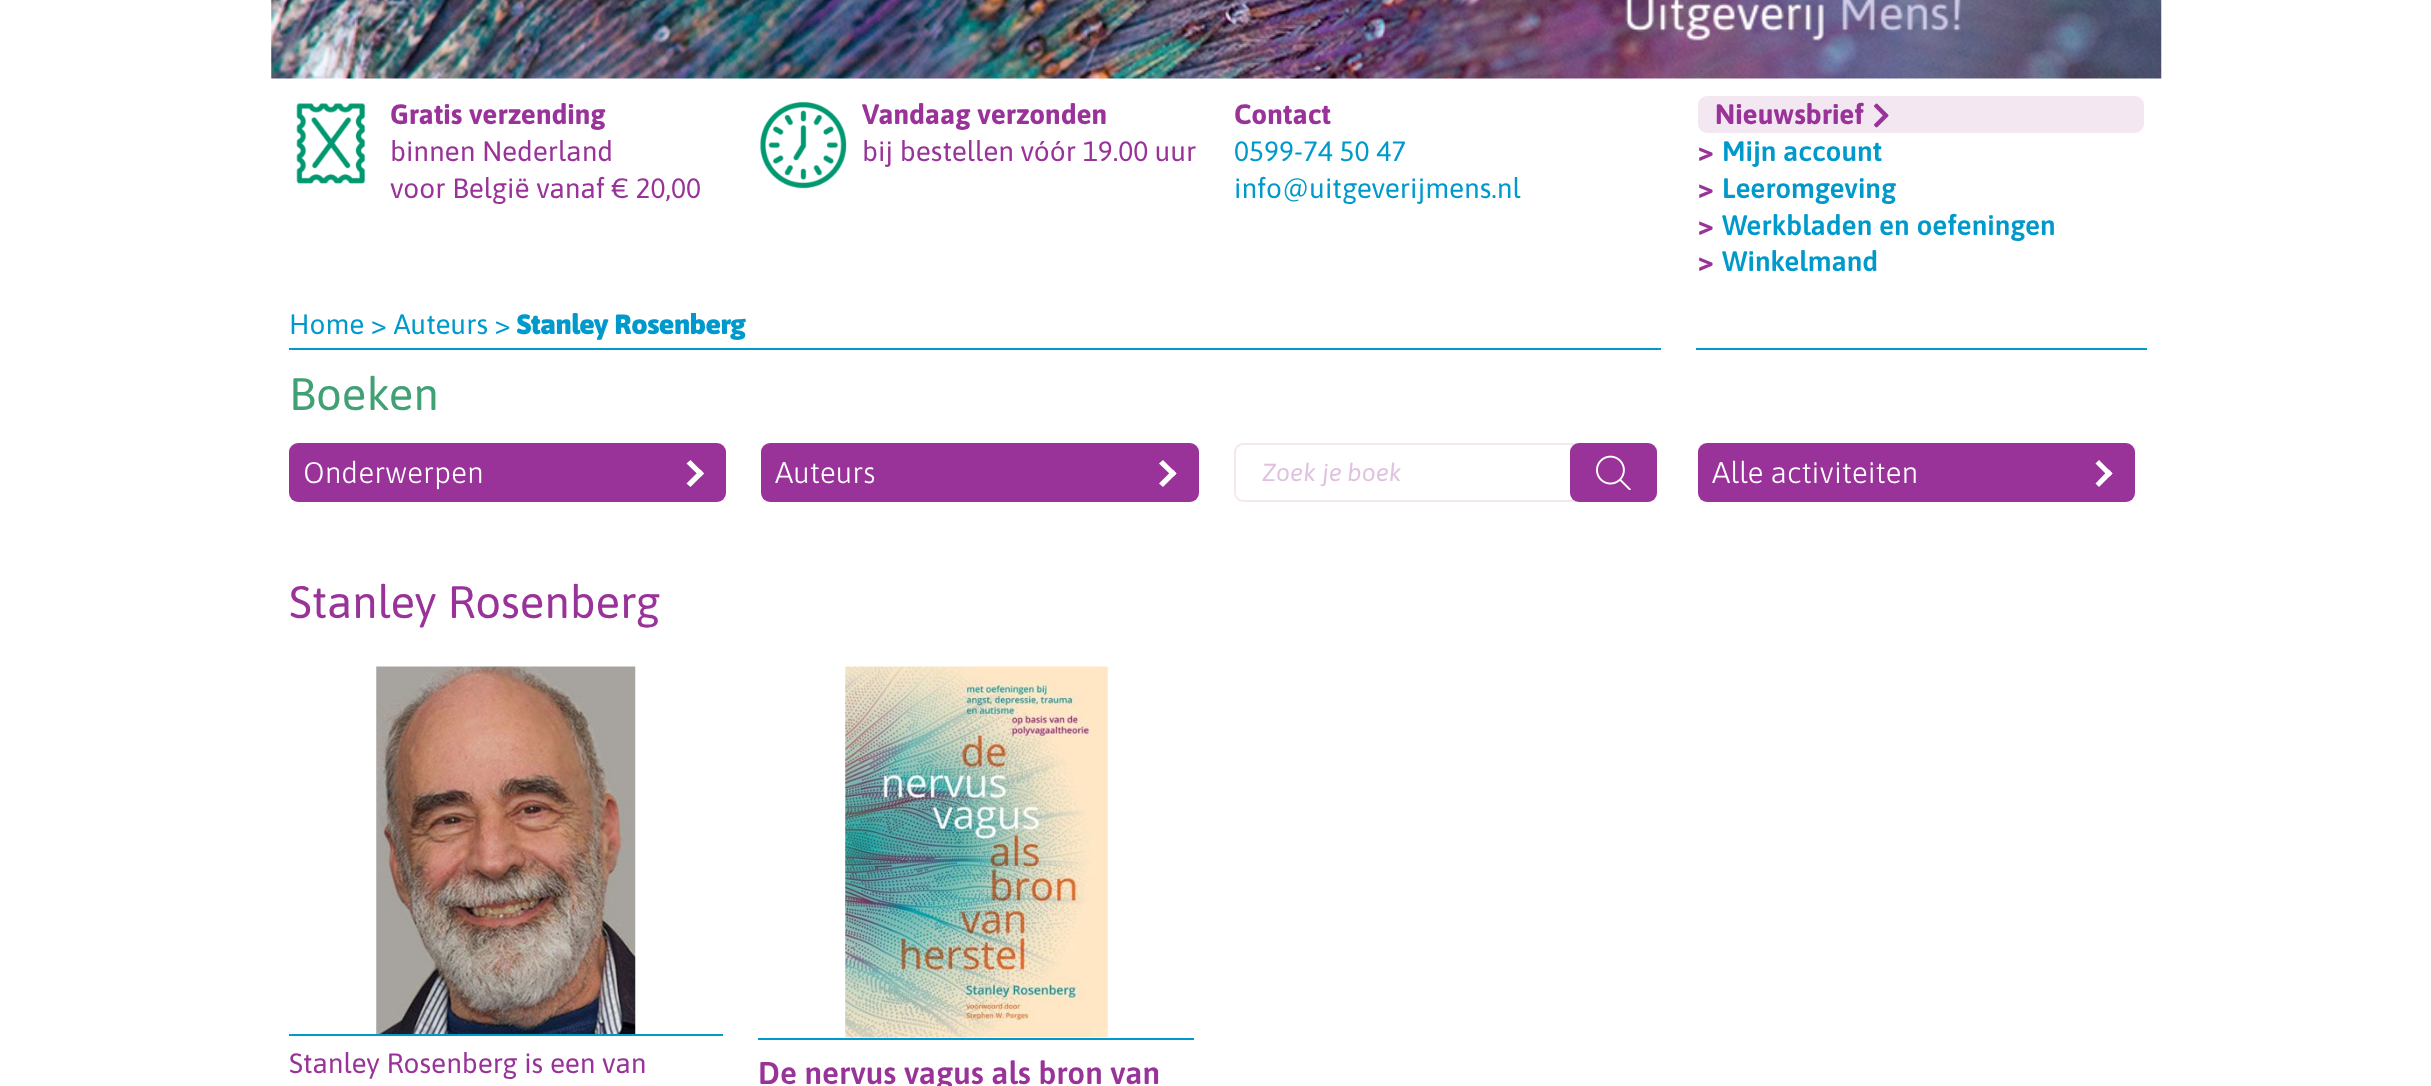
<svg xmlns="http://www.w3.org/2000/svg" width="2431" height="1086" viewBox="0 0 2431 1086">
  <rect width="100%" height="100%" fill="rgb(255,255,255)"/>
  <image x="271" y="0" width="1891" height="79" href="pic1.png"/>
  <image x="1625" y="0" width="336" height="41" href="pic2.png"/>
  <image x="296" y="103" width="70" height="81" href="pic3.png"/>
  <text x="390" y="124" font-family="Asap" font-size="28" font-weight="bold" fill="rgb(153,51,153)">Gratis verzending</text>
  <g font-family="Asap" font-size="28" fill="rgb(153,51,153)">
    <text>
      <tspan x="390" y="161">binnen Nederland</tspan>
      <tspan x="390" y="198">voor België vanaf € 20,00</tspan>
    </text>
  </g>
  <image x="759" y="101" width="88" height="88" href="pic4.png"/>
  <text x="862" y="124" font-family="Asap" font-size="28" font-weight="bold" fill="rgb(153,51,153)">Vandaag verzonden</text>
  <text x="862" y="161" font-family="Asap" font-size="28" fill="rgb(153,51,153)">bij bestellen vóór 19.00 uur</text>
  <text x="1234" y="124" font-family="Asap" font-size="28" font-weight="bold" fill="rgb(153,51,153)">Contact</text>
  <g font-family="Asap" font-size="28" fill="rgb(0,153,204)">
    <text>
      <tspan x="1234" y="161">0599-74 50 47</tspan>
      <tspan x="1234" y="198">info@uitgeverijmens.nl</tspan>
    </text>
  </g>
  <rect x="1698" y="96" width="446" height="37" rx="9" fill="rgb(243,231,241)"/>
  <text x="1715" y="124" font-family="Asap" font-size="28" font-weight="bold" fill="rgb(153,51,153)">Nieuwsbrief</text>
  <image x="1874" y="103" width="15" height="25" href="pic5.png"/>
  <text x="1698" y="161" font-family="Asap" font-size="28" font-weight="800" fill="rgb(153,51,153)">&gt;</text>
  <text x="1722" y="161" font-family="Asap" font-size="28" font-weight="600" fill="rgb(0,153,204)">Mijn account</text>
  <text x="1698" y="198" font-family="Asap" font-size="28" font-weight="800" fill="rgb(153,51,153)">&gt;</text>
  <text x="1722" y="198" font-family="Asap" font-size="28" font-weight="600" fill="rgb(0,153,204)">Leeromgeving</text>
  <text x="1698" y="235" font-family="Asap" font-size="28" font-weight="800" fill="rgb(153,51,153)">&gt;</text>
  <text x="1722" y="235" font-family="Asap" font-size="28" font-weight="600" fill="rgb(0,153,204)">Werkbladen en oefeningen</text>
  <text x="1698" y="271" font-family="Asap" font-size="28" font-weight="800" fill="rgb(153,51,153)">&gt;</text>
  <text x="1722" y="271" font-family="Asap" font-size="28" font-weight="600" fill="rgb(0,153,204)">Winkelmand</text>
  <text x="289" y="334" font-family="Asap" font-size="28" fill="rgb(0,153,204)">Home &gt; Auteurs &gt;</text>
  <text x="517" y="334" font-family="Asap" font-size="28" font-weight="900" fill="rgb(0,153,204)">Stanley Rosenberg</text>
  <rect x="289" y="348" width="1372" height="2" fill="rgb(0,153,204)"/>
  <rect x="1696" y="348" width="451" height="2" fill="rgb(0,153,204)"/>
  <text x="289" y="410" font-family="Asap" font-size="45.5" fill="rgb(66,161,116)">Boeken</text>
  <rect x="289" y="443" width="437" height="59" rx="9" fill="rgb(153,51,153)"/>
  <text x="303" y="483" font-family="Asap" font-size="29.75" font-weight="300" fill="rgb(255,255,255)">Onderwerpen</text>
  <path d="M690.5 460L704 473.5L700.5 477L686.5 463.5Z" fill="rgb(255,255,255)"/>
  <path d="M700.5 469.5L704 473.5L690.5 487L686.5 483.5Z" fill="rgb(255,255,255)"/>
  <rect x="761" y="443" width="438" height="59" rx="9" fill="rgb(153,51,153)"/>
  <text x="775" y="483" font-family="Asap" font-size="29.75" font-weight="300" fill="rgb(255,255,255)">Auteurs</text>
  <path d="M1163 460L1176.5 473.5L1173 477L1159 463.5Z" fill="rgb(255,255,255)"/>
  <path d="M1173 469.5L1176.5 473.5L1163 487L1159 483.5Z" fill="rgb(255,255,255)"/>
  <rect x="1235" y="444" width="421" height="57" rx="8" fill="none" stroke="rgb(243,231,241)" stroke-width="2"/>
  <text x="1262" y="481" font-family="Asap" font-size="24.5" font-style="italic" fill="rgb(224,194,224)">Zoek je boek</text>
  <rect x="1570" y="443" width="87" height="59" rx="9" fill="rgb(153,51,153)"/>
  <image x="1596" y="455" width="35" height="35" href="pic6.png"/>
  <rect x="1698" y="443" width="437" height="59" rx="9" fill="rgb(153,51,153)"/>
  <text x="1712" y="483" font-family="Asap" font-size="29.75" font-weight="300" fill="rgb(255,255,255)">Alle activiteiten</text>
  <path d="M2099 460L2112.5 473.5L2109 477L2095.5 463.5Z" fill="rgb(255,255,255)"/>
  <path d="M2109 469.5L2112.5 473.5L2099 487L2095.5 483.5Z" fill="rgb(255,255,255)"/>
  <text x="289" y="618" font-family="Asap" font-size="45.5" fill="rgb(153,51,153)">Stanley Rosenberg</text>
  <rect x="289" y="1034" width="434" height="2" fill="rgb(0,153,204)"/>
  <image x="376" y="666" width="260" height="368" href="pic7.png"/>
  <text x="289" y="1073" font-family="Asap" font-size="28" fill="rgb(153,51,153)">Stanley Rosenberg is een van</text>
  <image x="845" y="666" width="263" height="372" href="pic8.png"/>
  <rect x="758" y="1038" width="436" height="2" fill="rgb(0,153,204)"/>
  <text x="758" y="1084" font-family="Asap" font-size="31.5" font-weight="600" fill="rgb(153,51,153)">De nervus vagus als bron van</text>
</svg>
